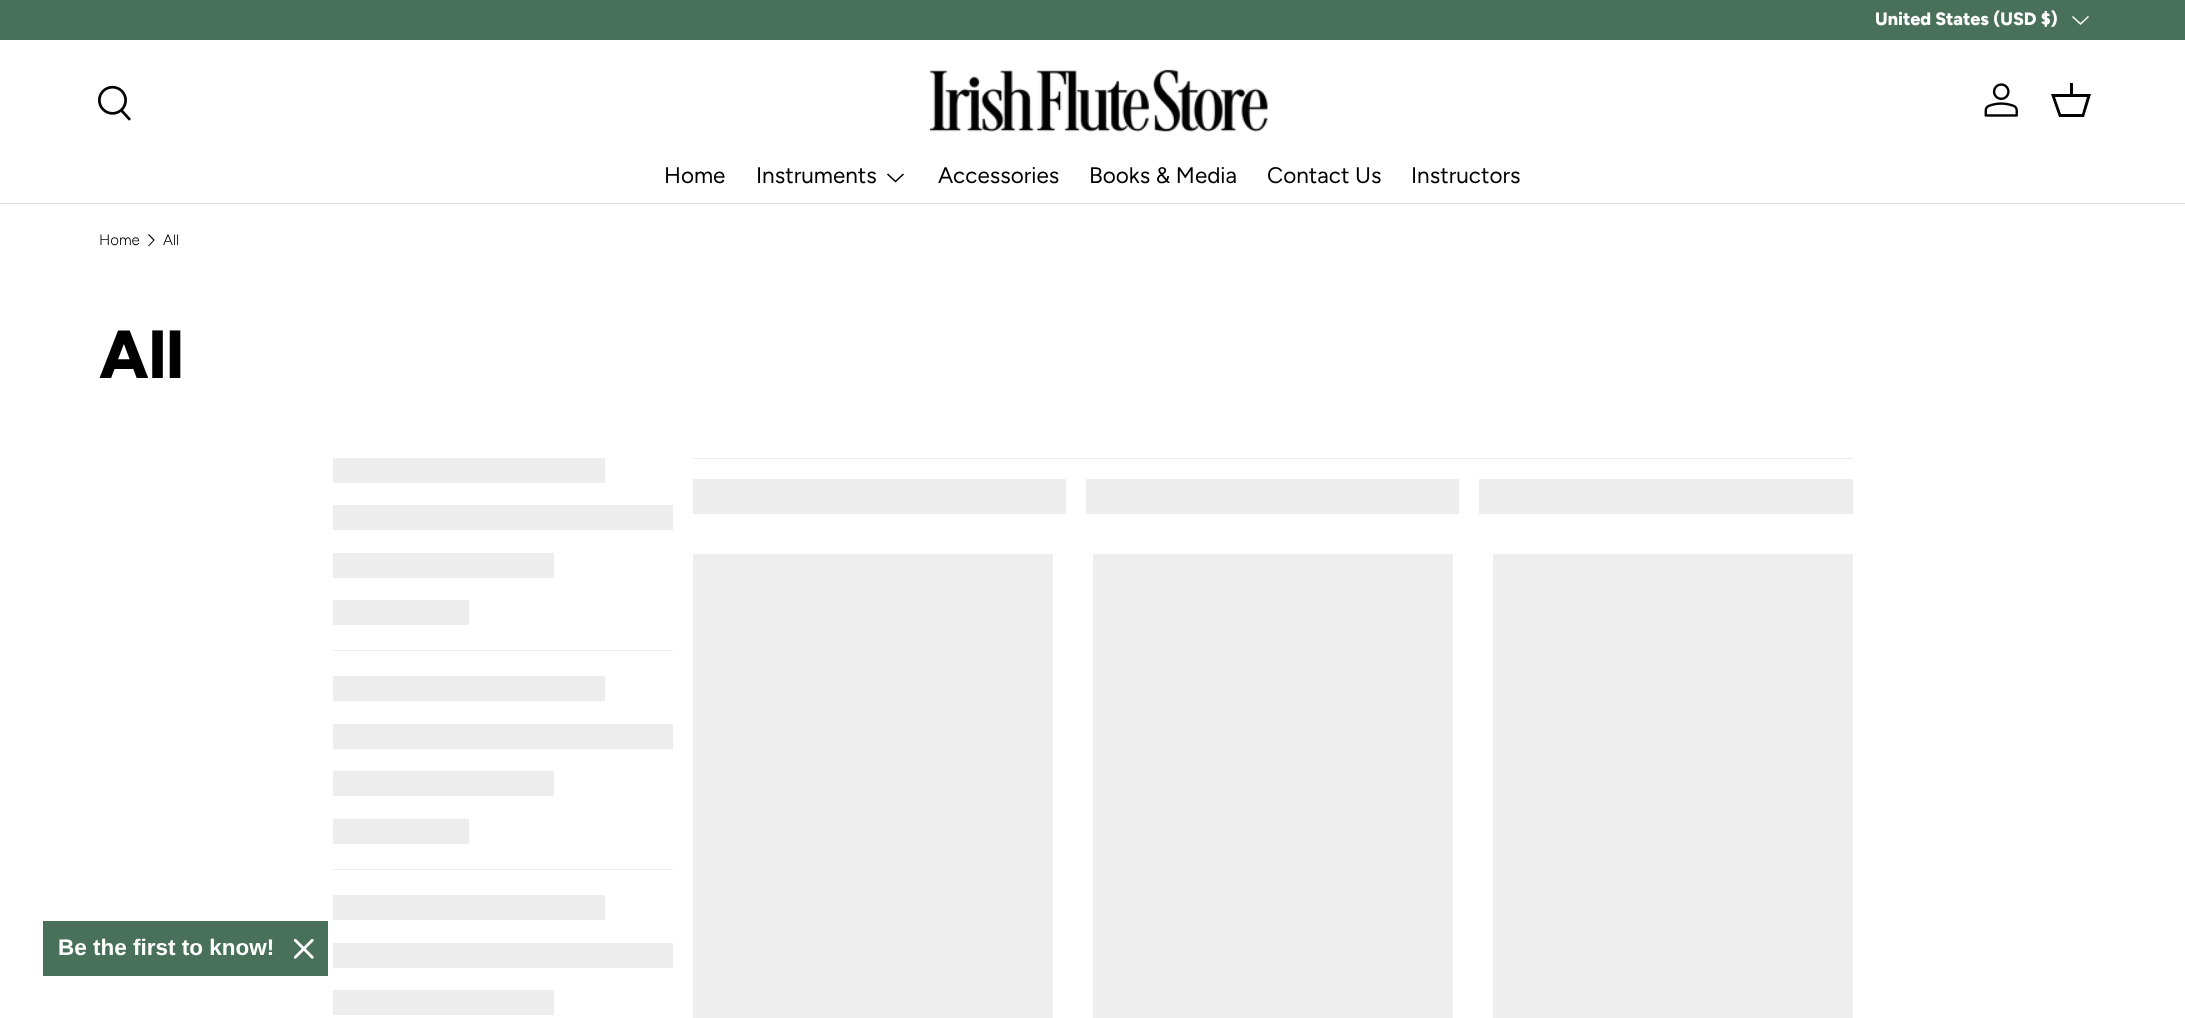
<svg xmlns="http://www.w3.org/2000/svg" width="2185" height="1018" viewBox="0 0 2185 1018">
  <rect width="100%" height="100%" fill="rgb(255,255,255)"/>
  <rect x="0" y="0" width="2185" height="40" fill="rgb(72,112,90)"/>
  <text x="1875" y="25" font-family="Figtree" font-size="18" font-weight="800" fill="rgb(255,255,255)">United States (USD $)</text>
  <path d="M2088.5 16.5L2080.5 24L2072.5 16.5" fill="none" stroke="rgb(255,255,255)" stroke-width="1.6"/>
  <rect x="0" y="203" width="2185" height="1" fill="rgb(217,217,217)"/>
  <image x="98" y="85" width="33" height="36" href="pic1.png"/>
  <image x="930" y="69" width="338" height="63" href="pic2.png"/>
  <image x="1984" y="83" width="34" height="34" href="pic3.png"/>
  <path d="M2070 94V83H2073V94H2091L2084 117H2059L2051 94ZM2055 97L2061 114H2082L2087 97Z" fill="rgb(0,0,0)"/>
  <g font-family="Figtree" font-size="22.5" fill="rgb(0,0,0)">
    <text x="664" y="183">Home</text>
    <text x="756" y="183">Instruments</text>
  </g>
  <path d="M903.5 174L895.5 181.5L887.5 174" fill="none" stroke="rgb(0,0,0)" stroke-width="1.6"/>
  <g font-family="Figtree" font-size="22.5" fill="rgb(0,0,0)">
    <text x="938" y="183">Accessories</text>
    <text x="1089" y="183">Books &amp; Media</text>
    <text x="1267" y="183">Contact Us</text>
    <text x="1411" y="183">Instructors</text>
  </g>
  <text x="99" y="245" font-family="Figtree" font-size="15" font-weight="300" fill="rgb(0,0,0)">Home</text>
  <path d="M148.5 234.5L154 240L148.5 246" fill="none" stroke="rgb(0,0,0)" stroke-width="1.1"/>
  <text x="163" y="245" font-family="Figtree" font-size="15" font-weight="300" fill="rgb(0,0,0)">All</text>
  <text x="99" y="378" font-family="Figtree" font-size="68" font-weight="800" fill="rgb(0,0,0)">All</text>
  <rect x="333" y="650" width="340" height="1" fill="rgb(235,235,235)"/>
  <rect x="333" y="458" width="272" height="25" fill="rgb(237,237,237)"/>
  <rect x="333" y="505" width="340" height="25" fill="rgb(237,237,237)"/>
  <rect x="333" y="553" width="221" height="25" fill="rgb(237,237,237)"/>
  <rect x="333" y="600" width="136" height="25" fill="rgb(237,237,237)"/>
  <rect x="333" y="869" width="340" height="1" fill="rgb(235,235,235)"/>
  <rect x="333" y="676" width="272" height="25" fill="rgb(237,237,237)"/>
  <rect x="333" y="724" width="340" height="25" fill="rgb(237,237,237)"/>
  <rect x="333" y="771" width="221" height="25" fill="rgb(237,237,237)"/>
  <rect x="333" y="819" width="136" height="25" fill="rgb(237,237,237)"/>
  <rect x="333" y="895" width="272" height="25" fill="rgb(237,237,237)"/>
  <rect x="333" y="943" width="340" height="25" fill="rgb(237,237,237)"/>
  <rect x="333" y="990" width="221" height="25" fill="rgb(237,237,237)"/>
  <rect x="693" y="458" width="1160" height="1" fill="rgb(235,235,235)"/>
  <rect x="693" y="479" width="373" height="35" fill="rgb(237,237,237)"/>
  <rect x="1086" y="479" width="373" height="35" fill="rgb(237,237,237)"/>
  <rect x="1479" y="479" width="374" height="35" fill="rgb(237,237,237)"/>
  <rect x="693" y="554" width="360" height="464" fill="rgb(238,238,238)"/>
  <rect x="1093" y="554" width="360" height="464" fill="rgb(238,238,238)"/>
  <rect x="1493" y="554" width="360" height="464" fill="rgb(238,238,238)"/>
  <rect x="43" y="921" width="285" height="55" fill="rgb(72,112,90)"/>
  <text x="58" y="955" font-family="Liberation Sans" font-size="22.5" font-weight="bold" fill="rgb(255,255,255)">Be the first to know!</text>
  <image x="294" y="939" width="20" height="20" href="pic4.png"/>
</svg>
